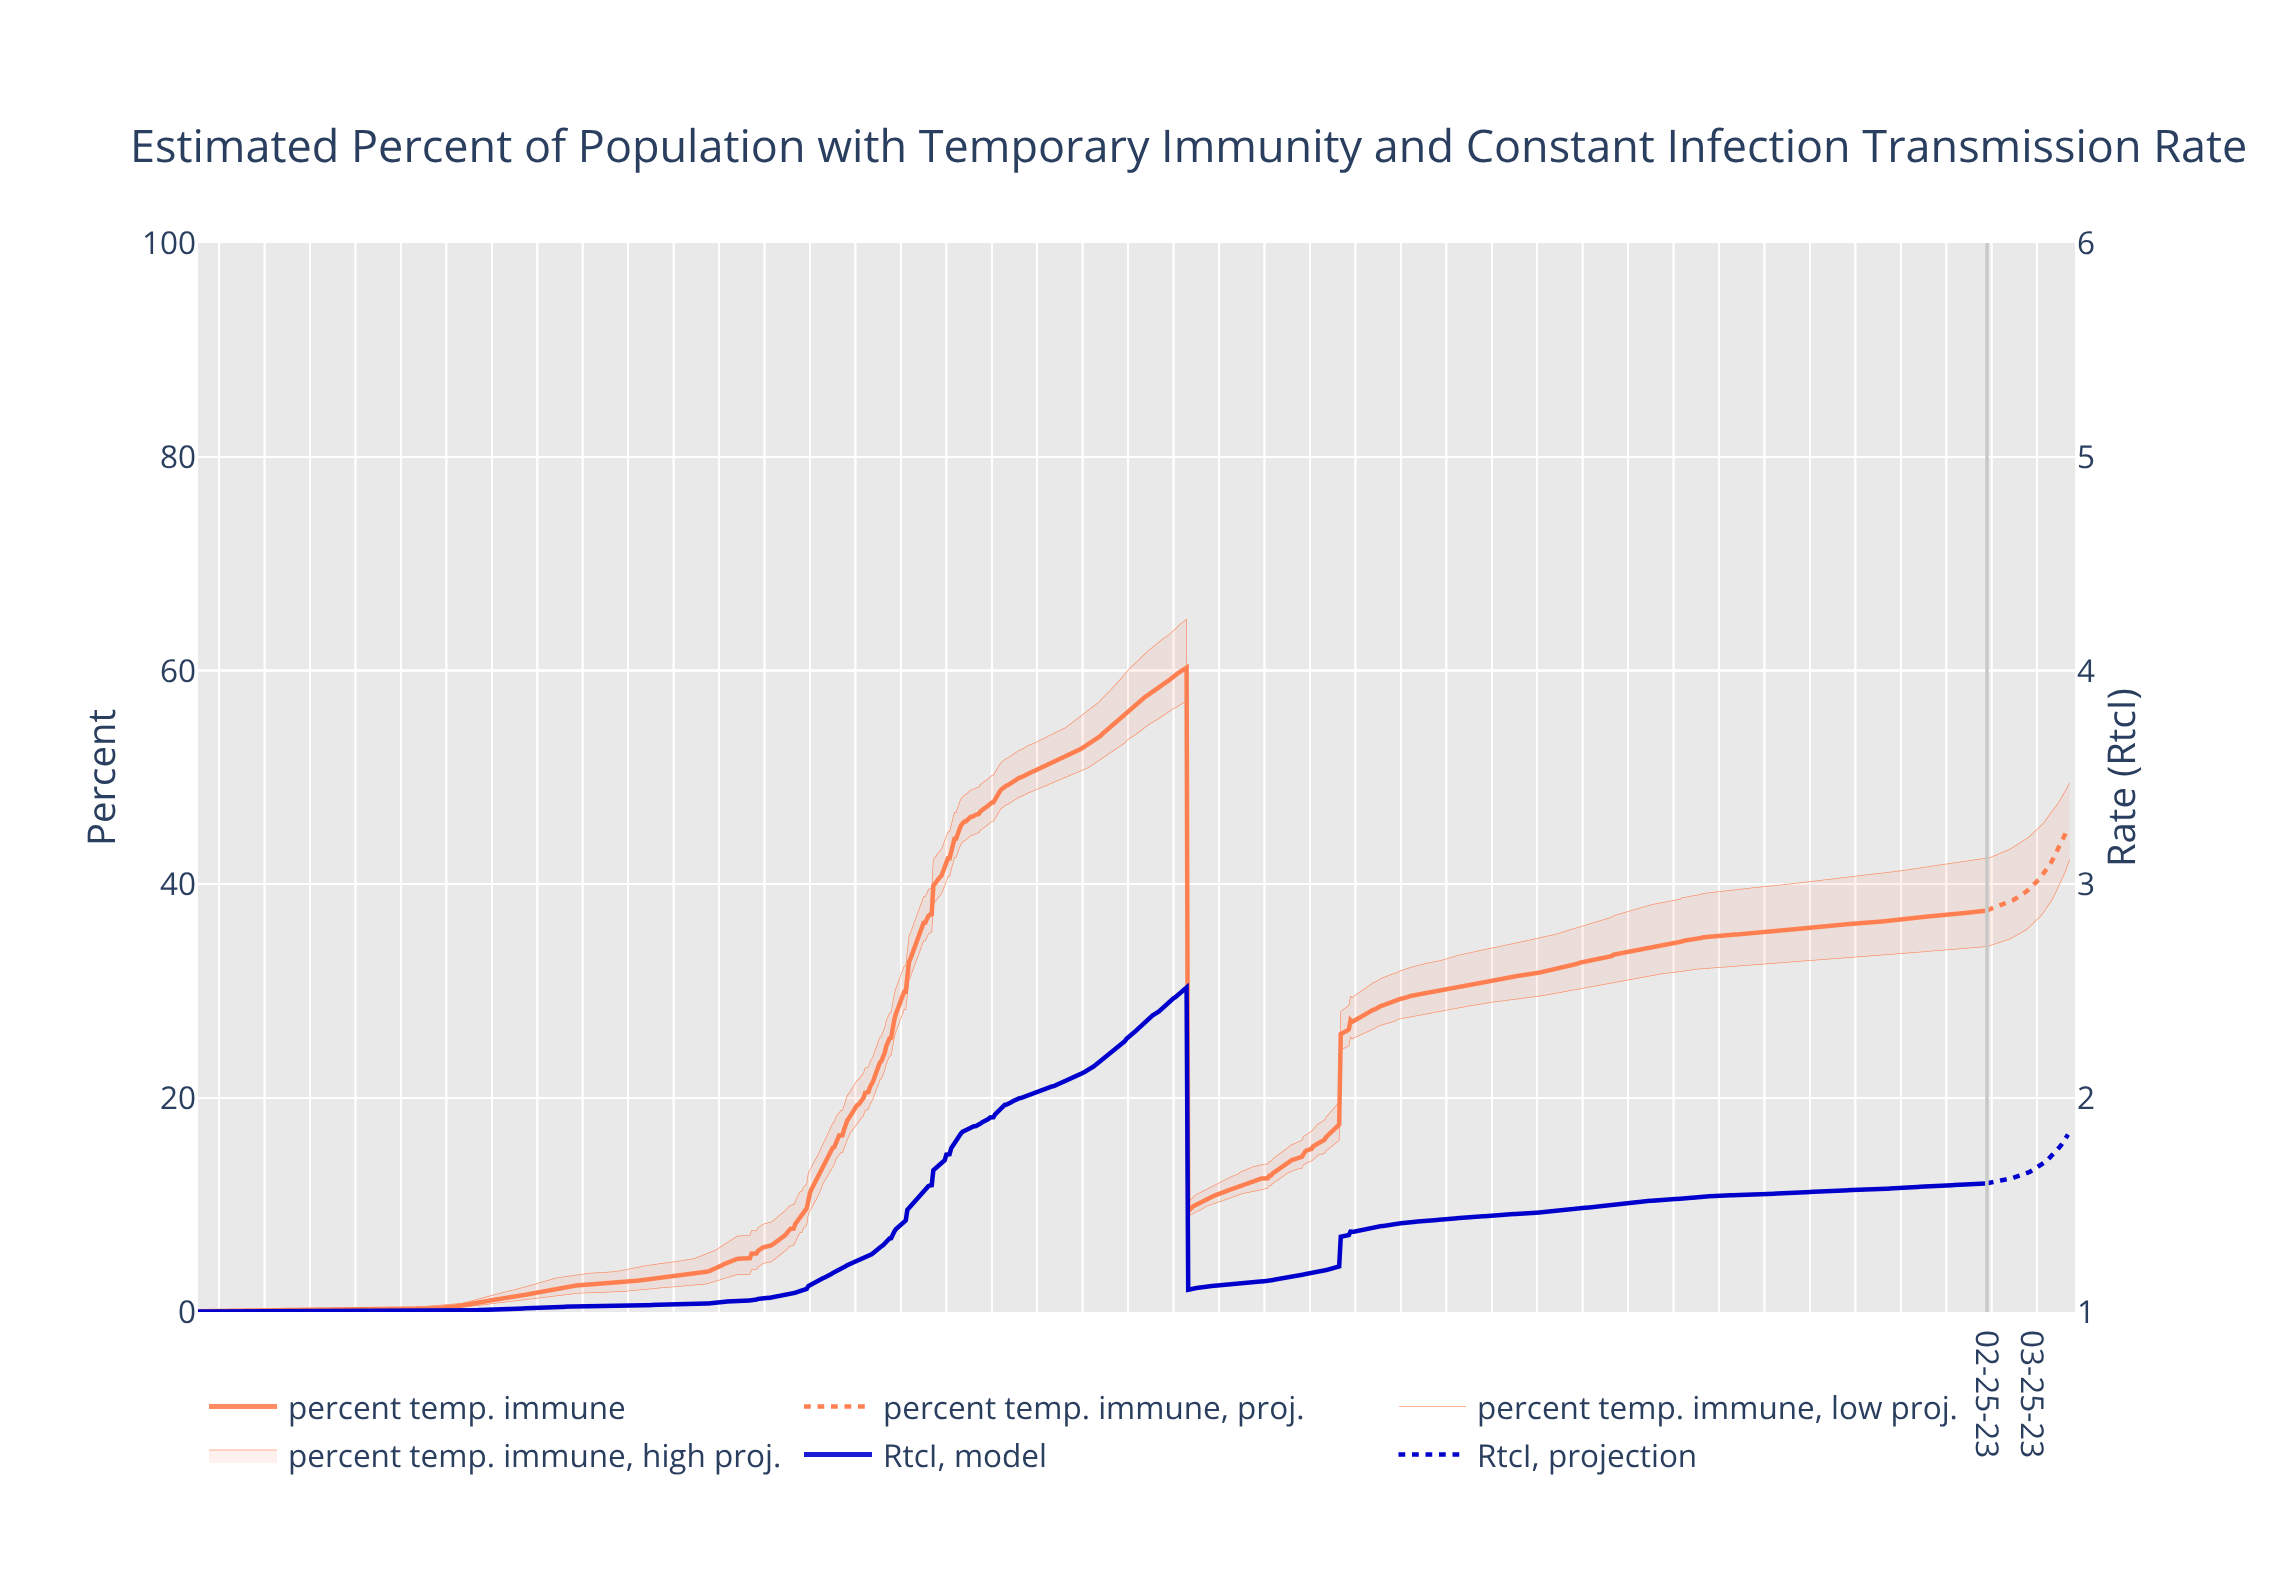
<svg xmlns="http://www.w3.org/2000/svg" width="2271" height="1582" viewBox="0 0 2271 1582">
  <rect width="100%" height="100%" fill="rgb(255,255,255)"/>
  <image x="198" y="243" width="1877" height="1069" href="pic1.png"/>
  <path d="M1987 1312V243" fill="none" stroke="rgb(200,200,200)" stroke-width="3.4"/>
  <rect x="209" y="1404" width="68" height="5" fill="rgb(255,140,98)"/>
  <path d="M804 1406.5H871.5" fill="none" stroke="rgb(255,127,80)" stroke-width="4.5" stroke-dasharray="6.75 6.75"/>
  <rect x="1399" y="1406" width="67" height="1" fill="rgb(255,178,150)"/>
  <rect x="209" y="1450" width="68" height="13" fill="rgb(255,242,238)"/>
  <path d="M209 1450H277" fill="none" stroke="rgb(255,127,80)" stroke-width="0.6"/>
  <rect x="804" y="1452" width="68" height="5" fill="rgb(26,26,210)"/>
  <path d="M1398.5 1454.5H1466" fill="none" stroke="rgb(0,0,205)" stroke-width="4.5" stroke-dasharray="6.75 6.75"/>
  <text x="130" y="162" font-family="Open Sans" font-size="45" fill="rgb(42,63,95)">Estimated Percent of Population with Temporary Immunity and Constant Infection Transmission Rate</text>
  <g font-family="Open Sans" font-size="38.25" fill="rgb(42,63,95)">
    <text x="115" y="846" transform="rotate(-90 115 846)">Percent</text>
    <text x="2135" y="867" transform="rotate(-90 2135 867)">Rate (RtcI)</text>
  </g>
  <g font-family="Open Sans" font-size="31.5" fill="rgb(42,63,95)">
    <text x="288" y="1419">percent temp. immune</text>
    <text x="883" y="1419">percent temp. immune, proj.</text>
    <text x="1477" y="1419">percent temp. immune, low proj.</text>
    <text x="288" y="1467">percent temp. immune, high proj.</text>
    <text x="883" y="1467">RtcI, model</text>
    <text x="1477" y="1467">RtcI, projection</text>
    <text x="142" y="254">100</text>
    <text x="2077" y="254">6</text>
    <text x="160" y="468">80</text>
    <text x="2077" y="468">5</text>
    <text x="160" y="682">60</text>
    <text x="2077" y="682">4</text>
    <text x="160" y="895">40</text>
    <text x="2077" y="895">3</text>
    <text x="160" y="1109">20</text>
    <text x="2077" y="1109">2</text>
    <text x="178" y="1323">0</text>
    <text x="2077" y="1323">1</text>
    <text x="1976" y="1330" transform="rotate(90 1976 1330)">02-25-23</text>
    <text x="2021" y="1330" transform="rotate(90 2021 1330)">03-25-23</text>
  </g>
</svg>
